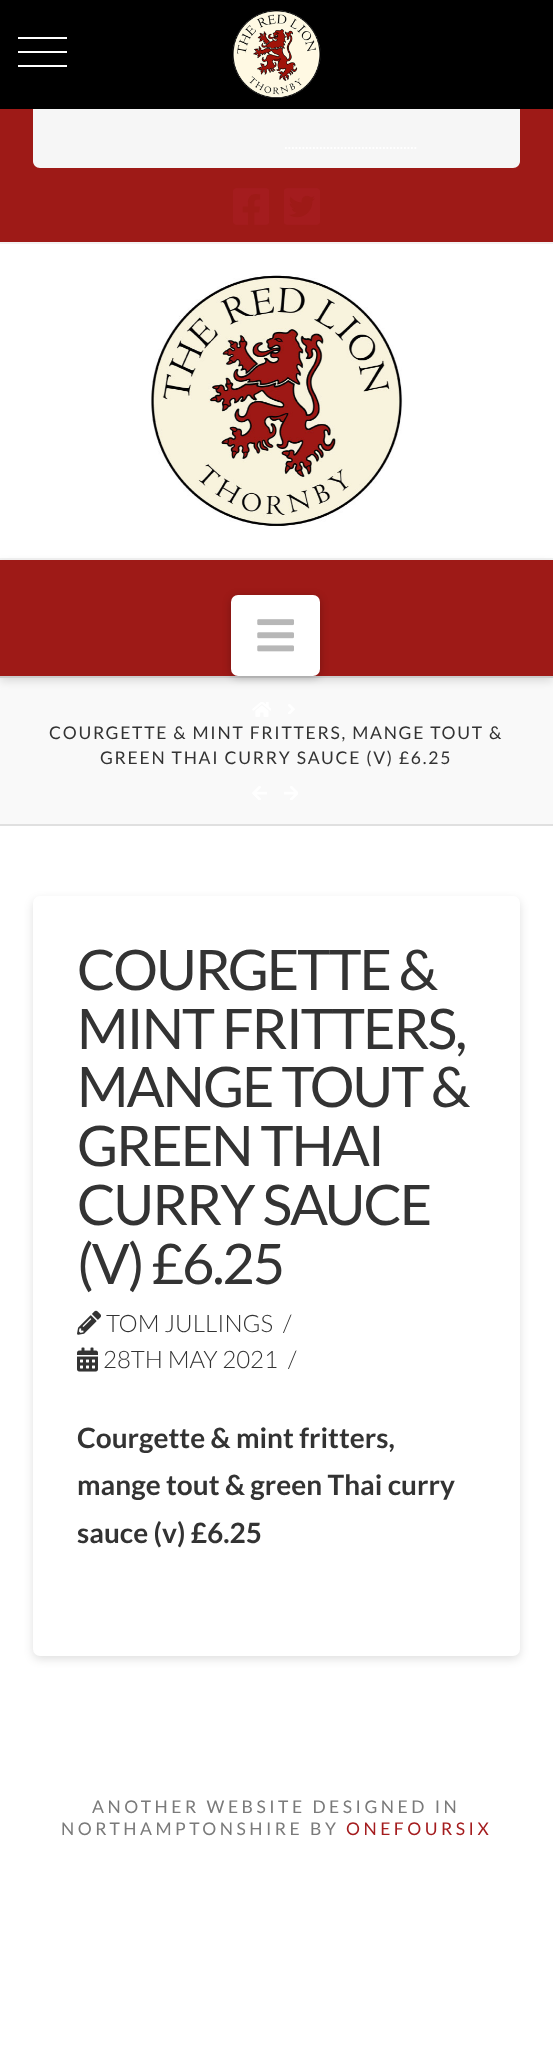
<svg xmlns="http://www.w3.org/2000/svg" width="553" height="2066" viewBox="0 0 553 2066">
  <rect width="100%" height="100%" fill="rgb(255,255,255)"/>
  <rect x="0" y="0" width="553" height="109" fill="rgb(0,0,0)"/>
  <rect x="18" y="51" width="49" height="2" fill="rgb(255,255,255)"/>
  <rect x="18" y="37" width="49" height="2" fill="rgb(255,255,255)"/>
  <rect x="18" y="65" width="49" height="2" fill="rgb(255,255,255)"/>
  <image x="232" y="10" width="89" height="88" href="pic1.png"/>
  <rect x="0" y="109" width="553" height="133" fill="rgb(158,26,23)"/>
  <rect x="0" y="242" width="553" height="2" fill="rgb(242,242,242)"/>
  <path d="M33 109H520V161C520 165 517 168 513 168H40C36 168 33 165 33 161Z" fill="rgb(246,246,246)"/>
  <path d="M285 148H416.5" fill="none" stroke="rgb(255,255,255)" stroke-width="1.8" stroke-dasharray="1.75 1.75"/>
  <image x="233" y="188" width="36" height="37" href="pic2.png"/>
  <image x="284" y="188" width="36" height="37" href="pic3.png"/>
  <rect x="0" y="558" width="553" height="2" fill="rgb(242,242,242)"/>
  <image x="151" y="274" width="252" height="252" href="pic4.png"/>
  <rect x="0" y="678" width="553" height="146" fill="rgb(249,249,249)"/>
  <rect x="0" y="564" width="553" height="117" fill="rgba(0,0,0,0.13)" filter="blur(5px)"/>
  <rect x="0" y="560" width="553" height="116" fill="rgb(158,26,23)"/>
  <rect x="0" y="676" width="553" height="2" fill="rgb(204,204,204)"/>
  <rect x="231" y="597" width="89" height="80" rx="7" fill="rgba(0,0,0,0.25)" filter="blur(4.5px)"/>
  <rect x="231" y="595" width="89" height="81" rx="7" fill="rgb(255,255,255)"/>
  <image x="257" y="619" width="37" height="33" href="pic5.png"/>
  <rect x="0" y="824" width="553" height="2" fill="rgb(224,224,224)"/>
  <image x="252" y="702" width="19" height="15" href="pic6.png"/>
  <image x="288" y="704" width="7" height="10" href="pic7.png"/>
  <g font-family="Lato" font-size="17.5" letter-spacing="1.75" fill="rgb(51,51,51)">
    <text x="49" y="739">COURGETTE &amp; MINT FRITTERS, MANGE TOUT &amp;</text>
    <text x="100" y="764">GREEN THAI CURRY SAUCE (V) £6.25</text>
  </g>
  <image x="252" y="786" width="15" height="14" href="pic8.png"/>
  <image x="284" y="786" width="14" height="14" href="pic9.png"/>
  <rect x="33" y="900" width="487" height="759" rx="7" fill="rgba(0,0,0,0.13)" filter="blur(5px)"/>
  <rect x="33" y="896" width="487" height="760" rx="7" fill="rgb(255,255,255)"/>
  <g font-family="Lato" font-size="56" letter-spacing="-2" fill="rgb(51,51,51)">
    <text>
      <tspan x="77" y="990">COURGETTE &amp;</tspan>
      <tspan x="77" y="1049">MINT FRITTERS,</tspan>
      <tspan x="77" y="1107">MANGE TOUT &amp;</tspan>
      <tspan x="77" y="1166">GREEN THAI</tspan>
      <tspan x="77" y="1225">CURRY SAUCE</tspan>
      <tspan x="77" y="1284">(V) £6.25</tspan>
    </text>
  </g>
  <image x="77" y="1310" width="24" height="25" href="pic10.png"/>
  <g font-family="Lato" font-size="24" font-weight="300" fill="rgb(51,51,51)">
    <text x="106" y="1332">TOM JULLINGS</text>
    <text x="283" y="1332">/</text>
  </g>
  <image x="77" y="1347" width="21" height="25" href="pic11.png"/>
  <g font-family="Lato" font-size="24" font-weight="300" fill="rgb(51,51,51)">
    <text x="103" y="1368">28TH MAY 2021</text>
    <text x="288" y="1368">/</text>
  </g>
  <g font-family="Lato" font-size="28" font-weight="bold" fill="rgb(51,51,51)">
    <text>
      <tspan x="77" y="1448">Courgette &amp; mint fritters,</tspan>
      <tspan x="77" y="1495">mange tout &amp; green Thai curry</tspan>
      <tspan x="77" y="1543">sauce (v) £6.25</tspan>
    </text>
  </g>
  <g font-family="Lato" font-size="17.5" letter-spacing="3.5" fill="rgb(122,122,122)">
    <text x="92" y="1813">ANOTHER WEBSITE DESIGNED IN</text>
    <text x="61" y="1835">NORTHAMPTONSHIRE BY</text>
  </g>
  <text x="346" y="1835" font-family="Lato" font-size="17.5" letter-spacing="3.5" fill="rgb(164,28,30)">ONEFOURSIX</text>
</svg>
